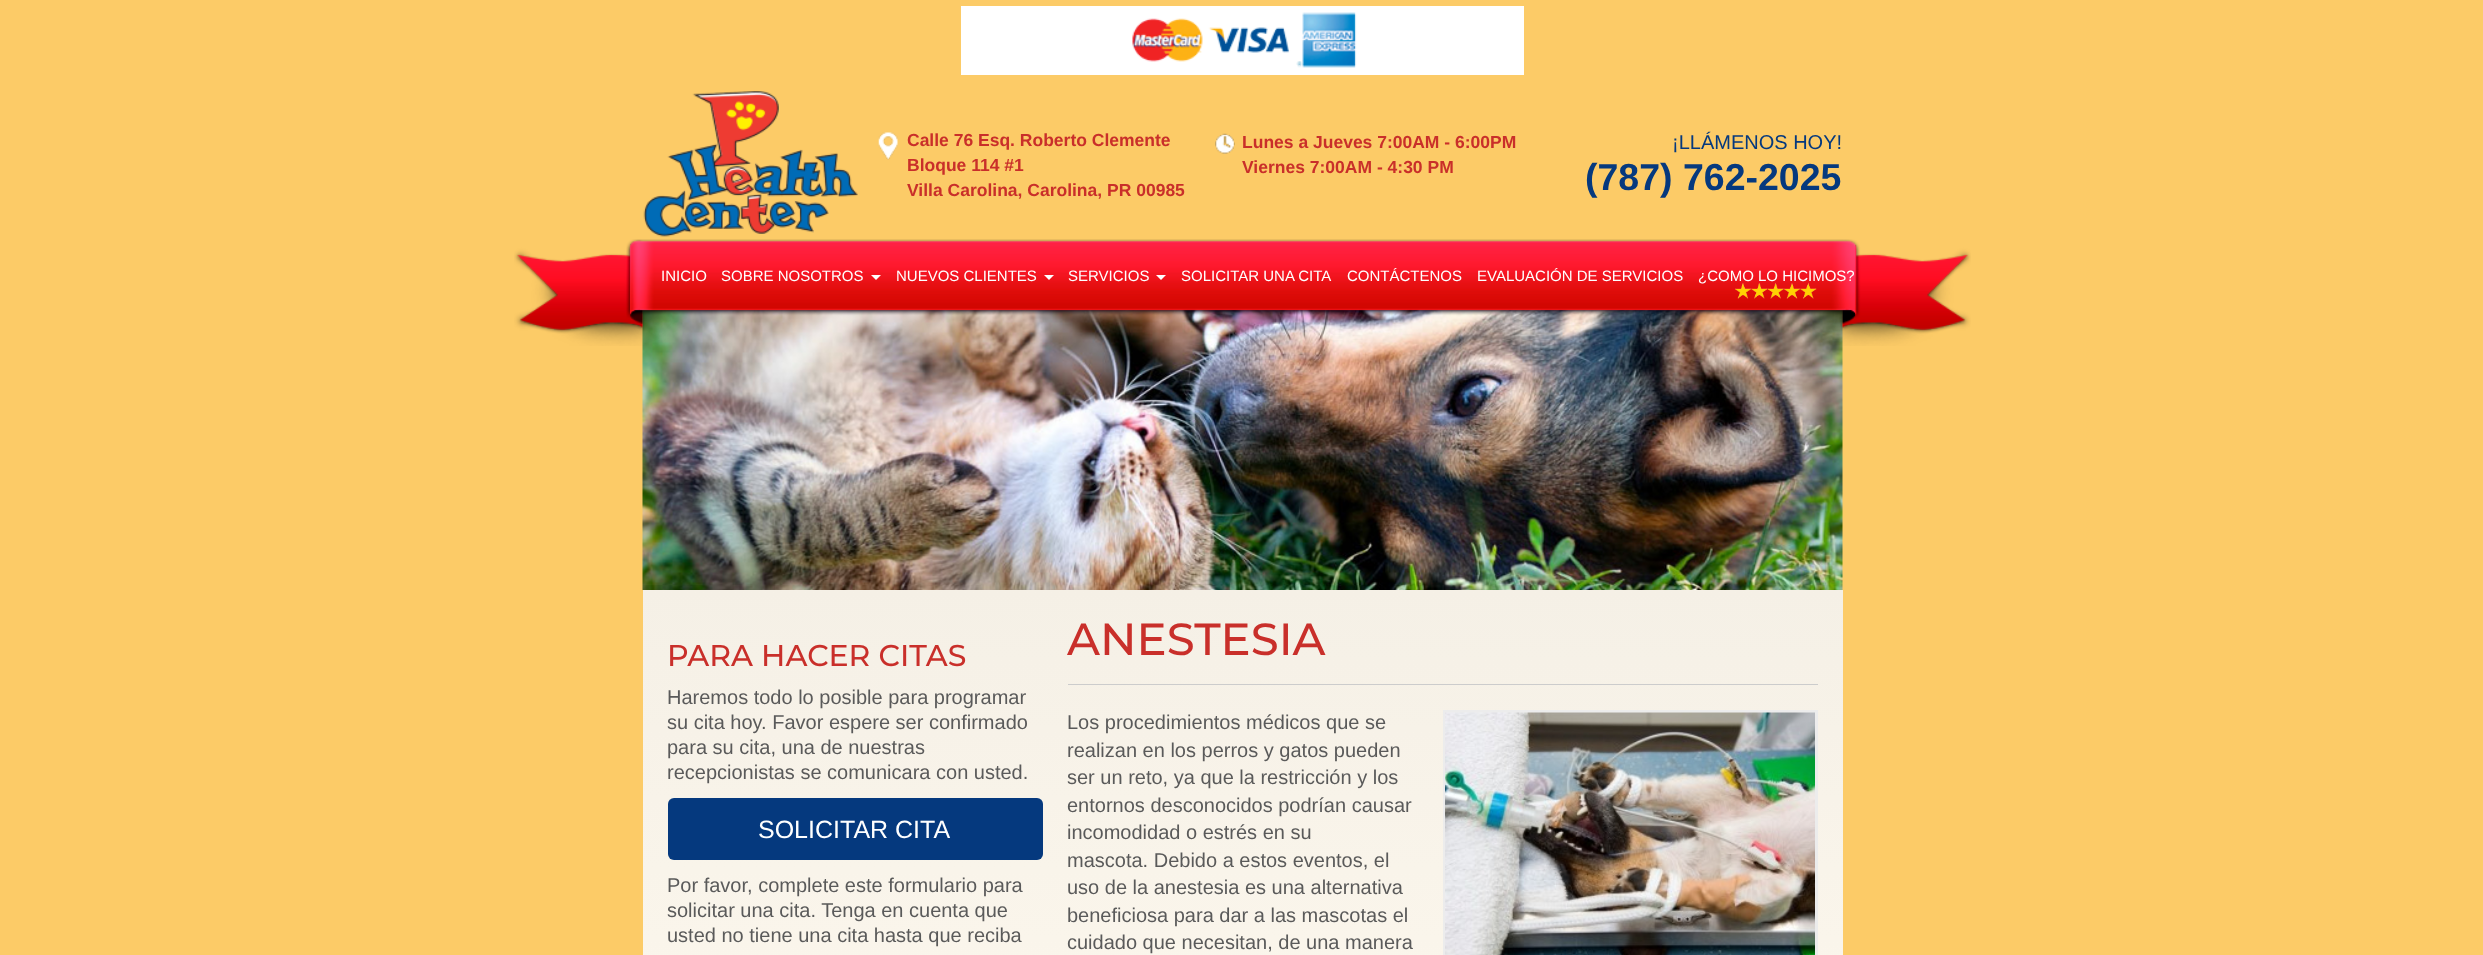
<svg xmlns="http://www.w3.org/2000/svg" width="2483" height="955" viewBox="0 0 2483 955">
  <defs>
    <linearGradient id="g1" gradientUnits="userSpaceOnUse" x1="1243" y1="590" x2="1243" y2="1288"><stop offset="0" stop-color="rgb(245,240,230)"/><stop offset="1" stop-color="rgb(255,250,240)"/></linearGradient>
  </defs>
  <rect width="100%" height="100%" fill="rgb(252,203,103)"/>
  <rect x="961" y="6" width="563" height="69" fill="rgb(255,255,255)"/>
  <image x="1132" y="12" width="225" height="56" href="pic1.png"/>
  <image x="643" y="91" width="215" height="146" href="pic2.png"/>
  <image x="878" y="132" width="20" height="28" href="pic3.png"/>
  <g font-family="Liberation Sans" font-size="17.5" font-weight="bold" fill="rgb(201,47,42)">
    <text>
      <tspan x="907" y="146">Calle 76 Esq. Roberto Clemente</tspan>
      <tspan x="907" y="171">Bloque 114 #1</tspan>
      <tspan x="907" y="196">Villa Carolina, Carolina, PR 00985</tspan>
    </text>
  </g>
  <image x="1215" y="133" width="20" height="21" href="pic4.png"/>
  <g font-family="Liberation Sans" font-size="17.5" font-weight="bold" fill="rgb(201,47,42)">
    <text>
      <tspan x="1242" y="148">Lunes a Jueves 7:00AM - 6:00PM</tspan>
      <tspan x="1242" y="173">Viernes 7:00AM - 4:30 PM</tspan>
    </text>
  </g>
  <text x="1672" y="149" font-family="Liberation Sans" font-size="20" fill="rgb(5,57,126)">¡LLÁMENOS HOY!</text>
  <text x="1585" y="190" font-family="Liberation Sans" font-size="37.5" font-weight="bold" fill="rgb(5,57,126)">(787) 762-2025</text>
  <image x="642" y="309" width="1201" height="281" href="pic7.png"/>
  <image x="514" y="239" width="1457" height="107" href="pic5.png"/>
  <g font-family="Liberation Sans" font-size="15" fill="rgb(255,255,255)">
    <text x="661" y="281">INICIO</text>
    <text x="721" y="281">SOBRE NOSOTROS</text>
  </g>
  <path d="M871 275H881L876 280Z" fill="rgb(255,255,255)"/>
  <text x="896" y="281" font-family="Liberation Sans" font-size="15" fill="rgb(255,255,255)">NUEVOS CLIENTES</text>
  <path d="M1044 275H1054L1049 280Z" fill="rgb(255,255,255)"/>
  <text x="1068" y="281" font-family="Liberation Sans" font-size="15" fill="rgb(255,255,255)">SERVICIOS</text>
  <path d="M1156 275H1166L1161 280Z" fill="rgb(255,255,255)"/>
  <g font-family="Liberation Sans" font-size="15" fill="rgb(255,255,255)">
    <text x="1181" y="281">SOLICITAR UNA CITA</text>
    <text x="1347" y="281">CONTÁCTENOS</text>
    <text x="1477" y="281">EVALUACIÓN DE SERVICIOS</text>
    <text x="1698" y="281">¿COMO LO HICIMOS?</text>
  </g>
  <image x="1735" y="282" width="82" height="17" href="pic6.png"/>
  <rect x="643" y="590" width="1200" height="365" fill="url(#g1)"/>
  <text x="667" y="666" font-family="Montserrat" font-size="30" font-weight="500" fill="rgb(201,47,42)">PARA HACER CITAS</text>
  <g font-family="Liberation Sans" font-size="20" fill="rgb(90,90,90)">
    <text>
      <tspan x="667" y="704">Haremos todo lo posible para programar</tspan>
      <tspan x="667" y="729">su cita hoy. Favor espere ser confirmado</tspan>
      <tspan x="667" y="754">para su cita, una de nuestras</tspan>
      <tspan x="667" y="779">recepcionistas se comunicara con usted.</tspan>
    </text>
  </g>
  <rect x="668" y="798" width="375" height="62" rx="6" fill="rgb(5,57,126)"/>
  <text x="758" y="838" font-family="Liberation Sans" font-size="25" fill="rgb(255,255,255)">SOLICITAR CITA</text>
  <g font-family="Liberation Sans" font-size="20" fill="rgb(90,90,90)">
    <text>
      <tspan x="667" y="892">Por favor, complete este formulario para</tspan>
      <tspan x="667" y="917">solicitar una cita. Tenga en cuenta que</tspan>
      <tspan x="667" y="942">usted no tiene una cita hasta que reciba</tspan>
    </text>
  </g>
  <text x="1067" y="655" font-family="Montserrat" font-size="45" font-weight="500" fill="rgb(201,47,42)">ANESTESIA</text>
  <rect x="1068" y="684" width="750" height="1" fill="rgb(204,204,204)"/>
  <text x="1067" y="729" font-family="Liberation Sans" font-size="20" fill="rgb(90,90,90)">Los procedimientos médicos que se</text>
  <rect x="1444.5" y="711.5" width="372" height="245" fill="none" stroke="rgb(236,236,236)" stroke-width="3"/>
  <image x="1445" y="712" width="370" height="243" href="pic8.png"/>
  <g font-family="Liberation Sans" font-size="20" fill="rgb(90,90,90)">
    <text>
      <tspan x="1067" y="757">realizan en los perros y gatos pueden</tspan>
      <tspan x="1067" y="784">ser un reto, ya que la restricción y los</tspan>
      <tspan x="1067" y="812">entornos desconocidos podrían causar</tspan>
      <tspan x="1067" y="839">incomodidad o estrés en su</tspan>
      <tspan x="1067" y="867">mascota. Debido a estos eventos, el</tspan>
      <tspan x="1067" y="894">uso de la anestesia es una alternativa</tspan>
      <tspan x="1067" y="922">beneficiosa para dar a las mascotas el</tspan>
      <tspan x="1067" y="949">cuidado que necesitan, de una manera</tspan>
    </text>
  </g>
</svg>
